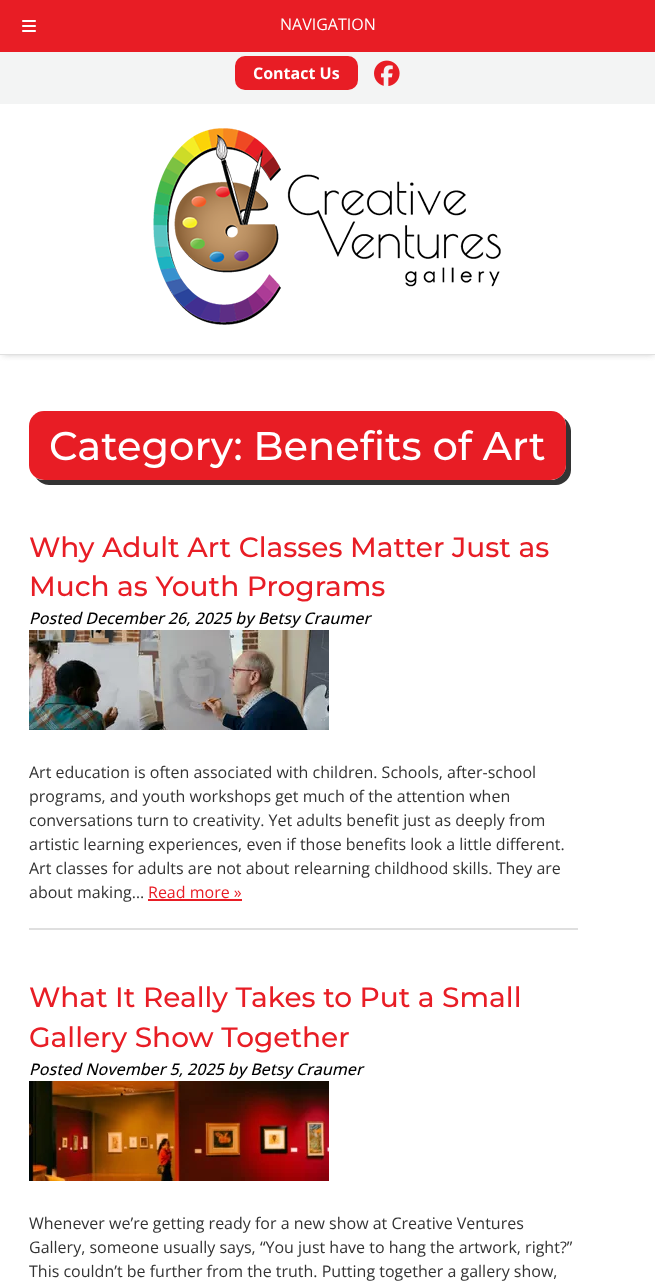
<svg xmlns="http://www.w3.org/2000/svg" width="655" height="1281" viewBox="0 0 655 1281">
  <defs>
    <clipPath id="clip1"><rect x="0" y="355" width="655" height="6"/></clipPath>
  </defs>
  <rect width="100%" height="100%" fill="rgb(255,255,255)"/>
  <g clip-path="url(#clip1)">
    <rect x="3" y="3" width="651" height="351" fill="rgb(194,194,194)" filter="blur(3.5px)"/>
  </g>
  <rect x="0" y="0" width="655" height="52" fill="rgb(232,29,37)"/>
  <image x="22" y="20" width="14" height="12" href="pic1.png"/>
  <text x="280" y="30" font-family="Open Sans" font-size="16" fill="rgb(255,255,255)">NAVIGATION</text>
  <rect x="0" y="354" width="655" height="1" fill="rgb(224,224,224)"/>
  <rect x="0" y="52" width="655" height="52" fill="rgb(243,244,244)"/>
  <rect x="236" y="57" width="121" height="32" rx="9" fill="rgb(232,29,37)" stroke="rgb(232,29,37)" stroke-width="2"/>
  <text x="253" y="79" font-family="Open Sans" font-size="16" font-weight="bold" fill="rgb(255,255,255)">Contact Us</text>
  <image x="374" y="60" width="26" height="26" href="pic2.png"/>
  <image x="153" y="128" width="348" height="197" href="pic3.png"/>
  <path d="M36 478C39 482 44 485 49 485H556C564 485 571 478 571 470V431C571 426 568 421 564 418C565 420 566 423 566 426V465C566 473 559 480 551 480H44C41 480 38 479 36 478Z" fill="rgb(51,51,51)"/>
  <rect x="29" y="411" width="537" height="69" rx="15" fill="rgb(232,29,37)"/>
  <text x="49" y="460" font-family="Montserrat" font-size="40" font-weight="500" fill="rgb(255,255,255)">Category: Benefits of Art</text>
  <rect x="29" y="928" width="549" height="2" fill="rgb(223,223,223)"/>
  <g font-family="Montserrat" font-size="28" font-weight="500" fill="rgb(232,29,37)">
    <text>
      <tspan x="29" y="557">Why Adult Art Classes Matter Just as</tspan>
      <tspan x="29" y="596">Much as Youth Programs</tspan>
    </text>
  </g>
  <text x="29" y="624" font-family="Open Sans" font-size="16" font-weight="500" font-style="italic" fill="rgb(0,0,0)">Posted December 26, 2025 by Betsy Craumer</text>
  <image x="29" y="630" width="300" height="100" href="pic4.png"/>
  <g font-family="Open Sans" font-size="16" fill="rgb(51,51,51)">
    <text>
      <tspan x="29" y="778">Art education is often associated with children. Schools, after-school</tspan>
      <tspan x="29" y="802">programs, and youth workshops get much of the attention when</tspan>
      <tspan x="29" y="826">conversations turn to creativity. Yet adults benefit just as deeply from</tspan>
      <tspan x="29" y="850">artistic learning experiences, even if those benefits look a little different.</tspan>
      <tspan x="29" y="874">Art classes for adults are not about relearning childhood skills. They are</tspan>
      <tspan x="29" y="898">about making…</tspan>
    </text>
  </g>
  <text x="148" y="898" font-family="Open Sans" font-size="16" fill="rgb(232,29,37)">Read more »</text>
  <rect x="148" y="899" width="94" height="2" fill="rgb(232,29,37)"/>
  <g font-family="Montserrat" font-size="28" font-weight="500" fill="rgb(232,29,37)">
    <text>
      <tspan x="29" y="1007">What It Really Takes to Put a Small</tspan>
      <tspan x="29" y="1047">Gallery Show Together</tspan>
    </text>
  </g>
  <text x="29" y="1075" font-family="Open Sans" font-size="16" font-weight="500" font-style="italic" fill="rgb(0,0,0)">Posted November 5, 2025 by Betsy Craumer</text>
  <image x="29" y="1081" width="300" height="100" href="pic5.png"/>
  <g font-family="Open Sans" font-size="16" fill="rgb(51,51,51)">
    <text>
      <tspan x="29" y="1229">Whenever we’re getting ready for a new show at Creative Ventures</tspan>
      <tspan x="29" y="1253">Gallery, someone usually says, “You just have to hang the artwork, right?”</tspan>
      <tspan x="29" y="1277">This couldn’t be further from the truth. Putting together a gallery show,</tspan>
    </text>
  </g>
</svg>
